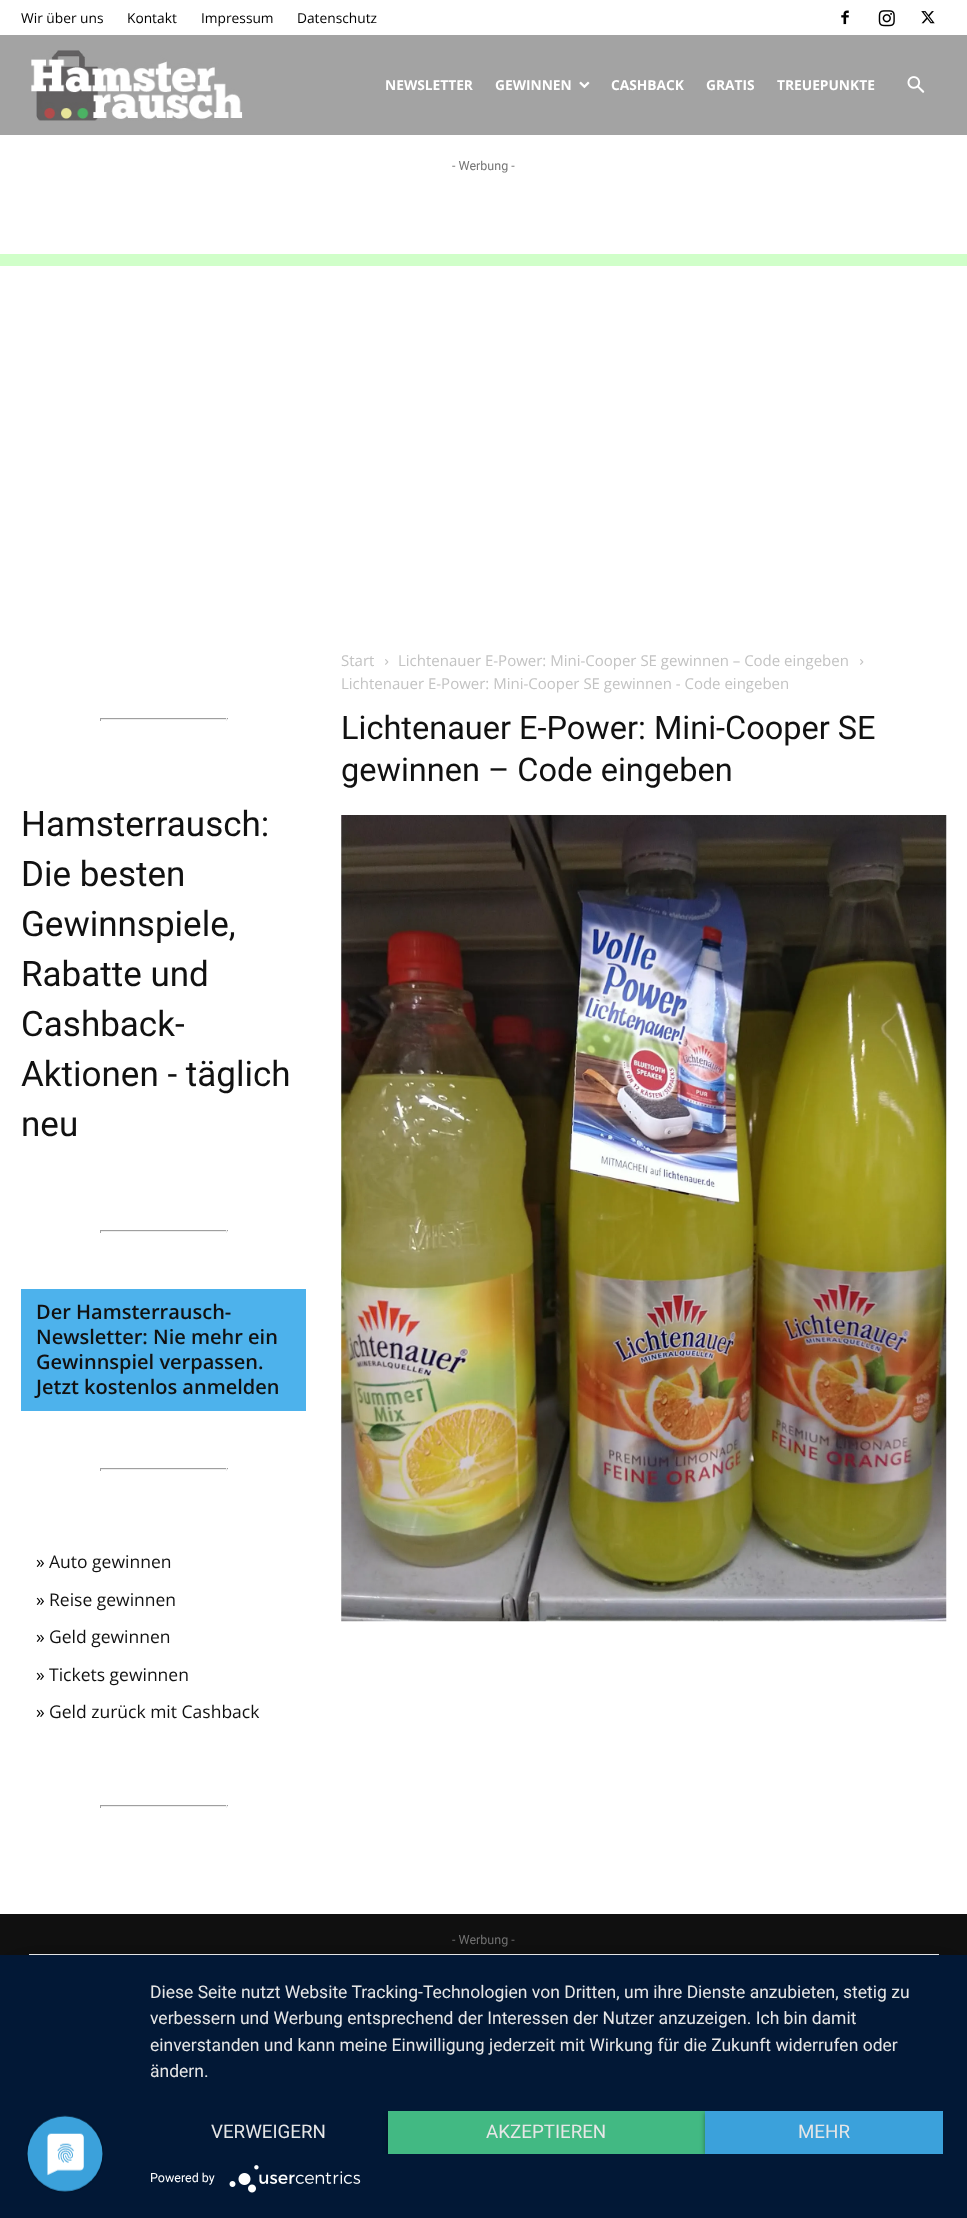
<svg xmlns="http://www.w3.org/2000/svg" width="967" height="2218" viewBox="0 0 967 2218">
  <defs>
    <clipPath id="clip1"><rect x="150" y="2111" width="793" height="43"/></clipPath>
  </defs>
  <rect width="100%" height="100%" fill="rgb(208,255,201)"/>
  <rect x="0" y="0" width="967" height="35" fill="rgb(255,255,255)"/>
  <g font-family="Open Sans" font-size="13.75" fill="rgb(0,0,0)">
    <text x="21" y="23">Wir über uns</text>
    <text x="127" y="23">Kontakt</text>
    <text x="201" y="23">Impressum</text>
    <text x="297" y="23">Datenschutz</text>
  </g>
  <image x="841" y="10" width="8" height="15" href="pic1.png"/>
  <image x="878" y="10" width="17" height="17" href="pic2.png"/>
  <image x="921" y="11" width="14" height="13" href="pic3.png"/>
  <rect x="0" y="35" width="967" height="100" fill="rgb(163,163,163)"/>
  <image x="31" y="50" width="212" height="71" href="pic4.png"/>
  <g font-family="Open Sans" font-size="13.75" font-weight="bold" fill="rgb(255,255,255)">
    <text x="385" y="90">NEWSLETTER</text>
    <text x="495" y="90">GEWINNEN</text>
  </g>
  <image x="579" y="81" width="11" height="8" href="pic5.png"/>
  <g font-family="Open Sans" font-size="13.75" font-weight="bold" fill="rgb(255,255,255)">
    <text x="611" y="90">CASHBACK</text>
    <text x="706" y="90">GRATIS</text>
    <text x="777" y="90">TREUEPUNKTE</text>
  </g>
  <image x="907" y="76" width="18" height="17" href="pic6.png"/>
  <rect x="0" y="135" width="967" height="119" fill="rgb(255,255,255)"/>
  <text x="452" y="170" font-family="Roboto" font-size="12.5" fill="rgb(118,118,118)">- Werbung -</text>
  <rect x="0" y="266" width="967" height="1648" fill="rgb(255,255,255)"/>
  <text x="341" y="666" font-family="Open Sans" font-size="15" fill="rgb(195,195,195)">Start</text>
  <image x="385" y="659" width="4" height="6" href="pic7.png"/>
  <text x="398" y="666" font-family="Open Sans" font-size="15" fill="rgb(195,195,195)">Lichtenauer E-Power: Mini-Cooper SE gewinnen – Code eingeben</text>
  <image x="860" y="659" width="4" height="6" href="pic7.png"/>
  <text x="341" y="689" font-family="Open Sans" font-size="15" fill="rgb(195,195,195)">Lichtenauer E-Power: Mini-Cooper SE gewinnen - Code eingeben</text>
  <g font-family="Roboto" font-size="32.5" fill="rgb(17,17,17)">
    <text>
      <tspan x="341" y="739">Lichtenauer E-Power: Mini-Cooper SE</tspan>
      <tspan x="341" y="781">gewinnen – Code eingeben</tspan>
    </text>
  </g>
  <image x="341" y="815" width="606" height="807" href="pic8.png"/>
  <rect x="100" y="718" width="128" height="1" fill="rgb(159,159,159)"/>
  <rect x="226" y="718" width="1" height="3" fill="rgb(238,238,238)"/>
  <rect x="100" y="719" width="128" height="1" fill="rgb(238,238,238)"/>
  <rect x="100" y="718" width="1" height="3" fill="rgb(159,159,159)"/>
  <g font-family="Roboto" font-size="35" fill="rgb(17,17,17)">
    <text>
      <tspan x="21" y="836">Hamsterrausch:</tspan>
      <tspan x="21" y="886">Die besten</tspan>
      <tspan x="21" y="936">Gewinnspiele,</tspan>
      <tspan x="21" y="986">Rabatte und</tspan>
      <tspan x="21" y="1036">Cashback-</tspan>
      <tspan x="21" y="1086">Aktionen - täglich</tspan>
      <tspan x="21" y="1136">neu</tspan>
    </text>
  </g>
  <rect x="100" y="1230" width="128" height="1" fill="rgb(159,159,159)"/>
  <rect x="226" y="1230" width="1" height="3" fill="rgb(238,238,238)"/>
  <rect x="100" y="1231" width="128" height="1" fill="rgb(238,238,238)"/>
  <rect x="100" y="1230" width="1" height="3" fill="rgb(159,159,159)"/>
  <rect x="21" y="1289" width="285" height="122" fill="rgb(77,178,236)"/>
  <g font-family="Open Sans" font-size="20" font-weight="600" fill="rgb(17,17,17)">
    <text>
      <tspan x="36" y="1319">Der Hamsterrausch-</tspan>
      <tspan x="36" y="1344">Newsletter: Nie mehr ein</tspan>
      <tspan x="36" y="1369">Gewinnspiel verpassen.</tspan>
      <tspan x="36" y="1394">Jetzt kostenlos anmelden</tspan>
    </text>
  </g>
  <rect x="100" y="1468" width="128" height="1" fill="rgb(159,159,159)"/>
  <rect x="226" y="1468" width="1" height="3" fill="rgb(238,238,238)"/>
  <rect x="100" y="1469" width="128" height="1" fill="rgb(238,238,238)"/>
  <rect x="100" y="1468" width="1" height="3" fill="rgb(159,159,159)"/>
  <text x="36" y="1568" font-family="Open Sans" font-size="17.5" fill="rgb(0,0,0)">»</text>
  <text x="49" y="1568" font-family="Open Sans" font-size="17.5" fill="rgb(17,17,17)">Auto gewinnen</text>
  <text x="36" y="1606" font-family="Open Sans" font-size="17.5" fill="rgb(0,0,0)">»</text>
  <text x="49" y="1606" font-family="Open Sans" font-size="17.5" fill="rgb(17,17,17)">Reise gewinnen</text>
  <text x="36" y="1643" font-family="Open Sans" font-size="17.5" fill="rgb(0,0,0)">»</text>
  <text x="49" y="1643" font-family="Open Sans" font-size="17.5" fill="rgb(17,17,17)">Geld gewinnen</text>
  <text x="36" y="1681" font-family="Open Sans" font-size="17.5" fill="rgb(0,0,0)">»</text>
  <text x="49" y="1681" font-family="Open Sans" font-size="17.5" fill="rgb(17,17,17)">Tickets gewinnen</text>
  <text x="36" y="1718" font-family="Open Sans" font-size="17.5" fill="rgb(0,0,0)">»</text>
  <text x="49" y="1718" font-family="Open Sans" font-size="17.5" fill="rgb(17,17,17)">Geld zurück mit Cashback</text>
  <rect x="100" y="1805" width="128" height="1" fill="rgb(159,159,159)"/>
  <rect x="226" y="1805" width="1" height="3" fill="rgb(238,238,238)"/>
  <rect x="100" y="1806" width="128" height="1" fill="rgb(238,238,238)"/>
  <rect x="100" y="1805" width="1" height="3" fill="rgb(159,159,159)"/>
  <rect x="0" y="1914" width="967" height="41" fill="rgb(17,17,17)"/>
  <text x="452" y="1944" font-family="Roboto" font-size="12.5" fill="rgb(118,118,118)">- Werbung -</text>
  <rect x="29" y="1954" width="910" height="1" fill="rgb(255,255,255)"/>
  <rect x="0" y="1963" width="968" height="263" fill="rgba(0,0,0,0.3)" filter="blur(22.5px)"/>
  <rect x="0" y="1955" width="967" height="263" fill="rgb(2,24,54)"/>
  <image x="26" y="2115" width="78" height="78" href="pic9.png"/>
  <g font-family="Roboto" font-size="17.5" fill="rgb(230,230,230)">
    <text>
      <tspan x="150" y="1998">Diese Seite nutzt Website Tracking-Technologien von Dritten, um ihre Dienste anzubieten, stetig zu</tspan>
      <tspan x="150" y="2024">verbessern und Werbung entsprechend der Interessen der Nutzer anzuzeigen. Ich bin damit</tspan>
      <tspan x="150" y="2051">einverstanden und kann meine Einwilligung jederzeit mit Wirkung für die Zukunft widerrufen oder</tspan>
      <tspan x="150" y="2077">ändern.</tspan>
    </text>
  </g>
  <text x="211" y="2138" font-family="Roboto" font-size="18.75" fill="rgb(230,230,230)">VERWEIGERN</text>
  <g clip-path="url(#clip1)">
    <rect x="388" y="2113" width="317" height="42" fill="rgba(0,0,0,0.4)" filter="blur(2.5px)"/>
  </g>
  <rect x="388" y="2111" width="317" height="43" fill="rgb(66,185,131)"/>
  <text x="486" y="2138" font-family="Roboto" font-size="18.75" fill="rgb(230,230,230)">AKZEPTIEREN</text>
  <g clip-path="url(#clip1)">
    <rect x="705" y="2113" width="238" height="42" fill="rgba(0,0,0,0.4)" filter="blur(2.5px)"/>
  </g>
  <rect x="705" y="2111" width="238" height="43" fill="rgb(59,161,219)"/>
  <text x="798" y="2138" font-family="Roboto" font-size="18.75" fill="rgb(230,230,230)">MEHR</text>
  <text x="150" y="2182" font-family="Roboto" font-size="12.5" fill="rgb(255,255,255)">Powered by</text>
  <image x="229" y="2165" width="132" height="28" href="pic10.png"/>
</svg>
